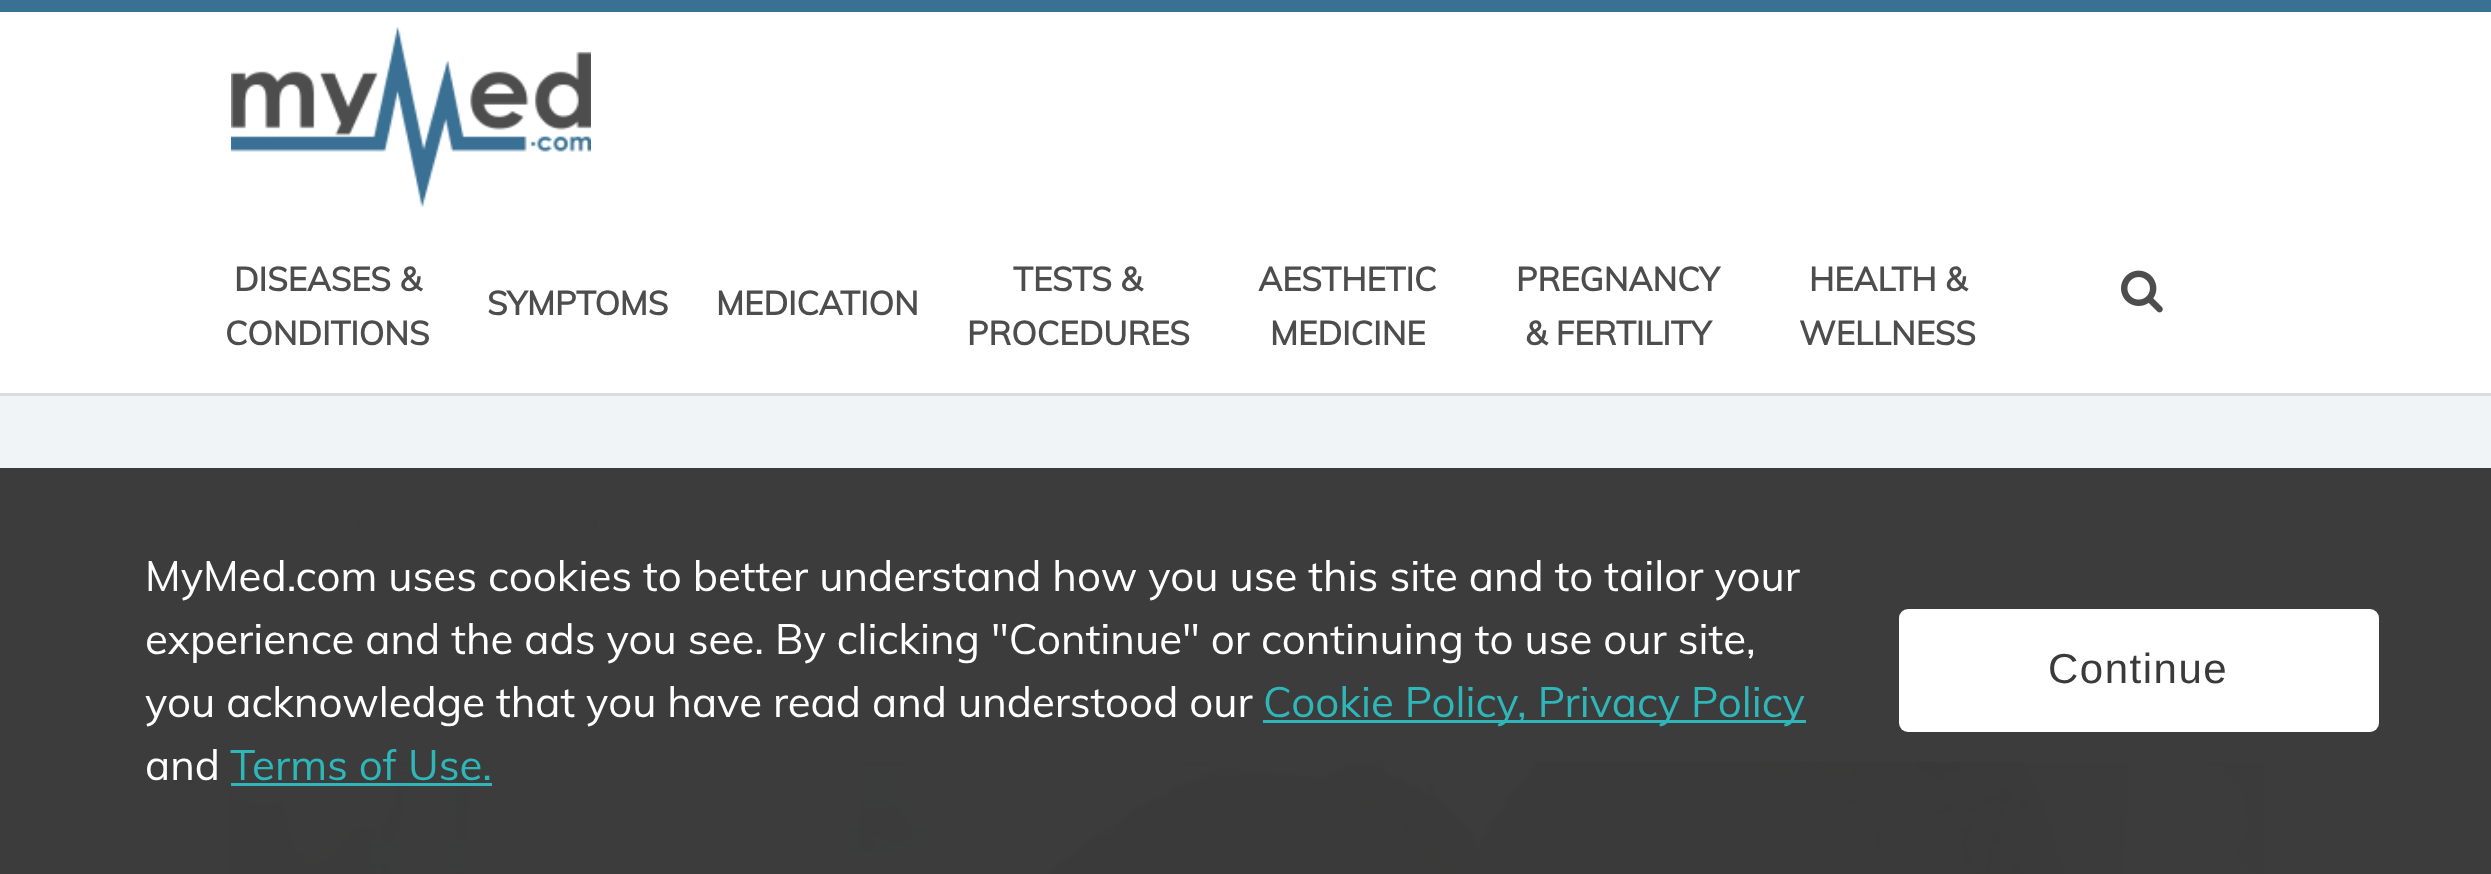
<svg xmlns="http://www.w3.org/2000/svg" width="2491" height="874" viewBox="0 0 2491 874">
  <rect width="100%" height="100%" fill="rgb(255,255,255)"/>
  <rect x="0" y="0" width="2491" height="12" fill="rgb(56,113,145)"/>
  <rect x="0" y="393" width="2491" height="3" fill="rgb(221,221,221)"/>
  <image x="231" y="27" width="360" height="180" href="pic1.png"/>
  <g font-family="Muli" font-size="33" font-weight="bold" fill="rgb(77,77,77)">
    <text x="234" y="291">DISEASES &amp;</text>
    <text x="225" y="345">CONDITIONS</text>
    <text x="487" y="315">SYMPTOMS</text>
    <text x="716" y="315">MEDICATION</text>
    <text x="1013" y="291">TESTS &amp;</text>
    <text x="967" y="345">PROCEDURES</text>
    <text x="1258" y="291">AESTHETIC</text>
    <text x="1270" y="345">MEDICINE</text>
    <text x="1516" y="291">PREGNANCY</text>
    <text x="1525" y="345">&amp; FERTILITY</text>
    <text x="1809" y="291">HEALTH &amp;</text>
    <text x="1799" y="345">WELLNESS</text>
  </g>
  <image x="2121" y="270" width="42" height="43" href="pic2.png"/>
  <rect x="0" y="396" width="2491" height="72" fill="rgb(240,244,246)"/>
  <rect x="0" y="468" width="2491" height="406" fill="rgb(60,60,60)"/>
  <image x="351" y="516" width="10" height="17" href="pic3.png"/>
  <image x="588" y="516" width="10" height="17" href="pic3.png"/>
  <image x="228" y="762" width="2037" height="112" href="pic4.png"/>
  <g font-family="Muli" font-size="42" fill="rgb(255,255,255)">
    <text>
      <tspan x="145" y="591">MyMed.com uses cookies to better understand how you use this site and to tailor your</tspan>
      <tspan x="145" y="654">experience and the ads you see. By clicking "Continue" or continuing to use our site,</tspan>
      <tspan x="145" y="717">you acknowledge that you have read and understood our</tspan>
    </text>
  </g>
  <rect x="1263" y="720" width="543" height="3" fill="rgb(47,182,184)"/>
  <text x="1263" y="717" font-family="Muli" font-size="42" fill="rgb(47,182,184)">Cookie Policy, Privacy Policy</text>
  <text x="145" y="780" font-family="Muli" font-size="42" fill="rgb(255,255,255)">and</text>
  <text x="230" y="780" font-family="Muli" font-size="42" fill="rgb(47,182,184)">Terms of Use.</text>
  <rect x="231" y="783" width="261" height="3" fill="rgb(47,182,184)"/>
  <rect x="1899" y="609" width="480" height="123" rx="9" fill="rgb(255,255,255)"/>
  <text x="2048" y="683" font-family="Liberation Sans" font-size="42" letter-spacing="1.5" fill="rgb(58,58,58)">Continue</text>
</svg>
